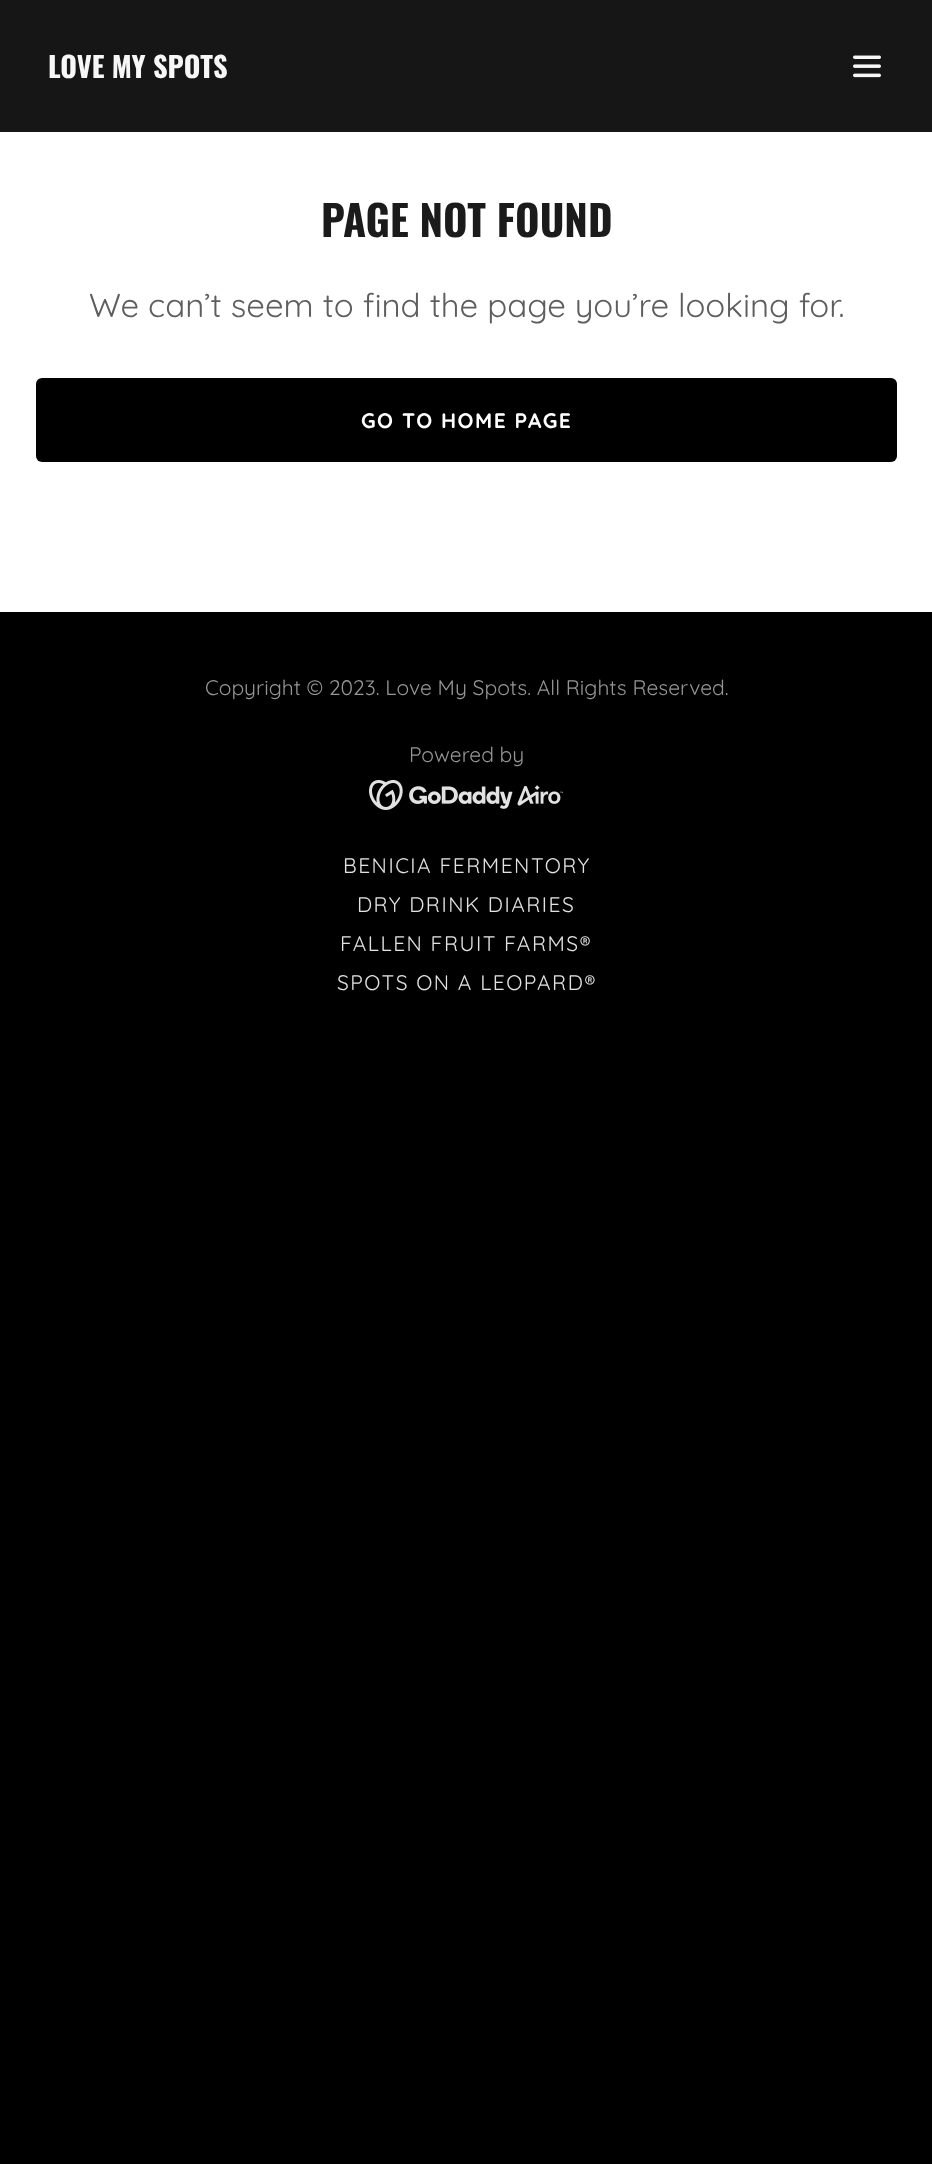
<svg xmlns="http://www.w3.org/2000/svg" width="932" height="2164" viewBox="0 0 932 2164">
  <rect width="100%" height="100%" fill="rgb(0,0,0)"/>
  <rect x="0" y="0" width="932" height="132" fill="rgb(22,22,22)"/>
  <text x="48" y="78" font-family="Oswald" font-size="28.5" font-weight="bold" fill="rgb(247,247,247)">LOVE MY SPOTS</text>
  <image x="853" y="55" width="28" height="23" href="pic1.png"/>
  <rect x="0" y="132" width="932" height="480" fill="rgb(255,255,255)"/>
  <text x="321" y="237" font-family="Oswald" font-size="42" font-weight="bold" fill="rgb(27,27,27)">PAGE NOT FOUND</text>
  <text x="89" y="317" font-family="Quicksand" font-size="33" fill="rgb(94,94,94)">We can’t seem to find the page you’re looking for.</text>
  <rect x="36" y="378" width="861" height="84" rx="6" fill="rgb(0,0,0)"/>
  <text x="361" y="428" font-family="Quicksand" font-size="21" font-weight="bold" letter-spacing="1.5" fill="rgb(255,255,255)">GO TO HOME PAGE</text>
  <g font-family="Quicksand" font-size="21" fill="rgb(150,150,150)">
    <text x="205" y="695">Copyright © 2023. Love My Spots. All Rights Reserved.</text>
    <text x="409" y="762">Powered by</text>
  </g>
  <image x="369" y="780" width="194" height="30" href="pic2.png"/>
  <g font-family="Quicksand" font-size="21" letter-spacing="1.5" fill="rgb(226,226,226)">
    <text x="343" y="873">BENICIA FERMENTORY</text>
    <text x="357" y="912">DRY DRINK DIARIES</text>
    <text x="340" y="951">FALLEN FRUIT FARMS®</text>
    <text x="337" y="990">SPOTS ON A LEOPARD®</text>
  </g>
</svg>
